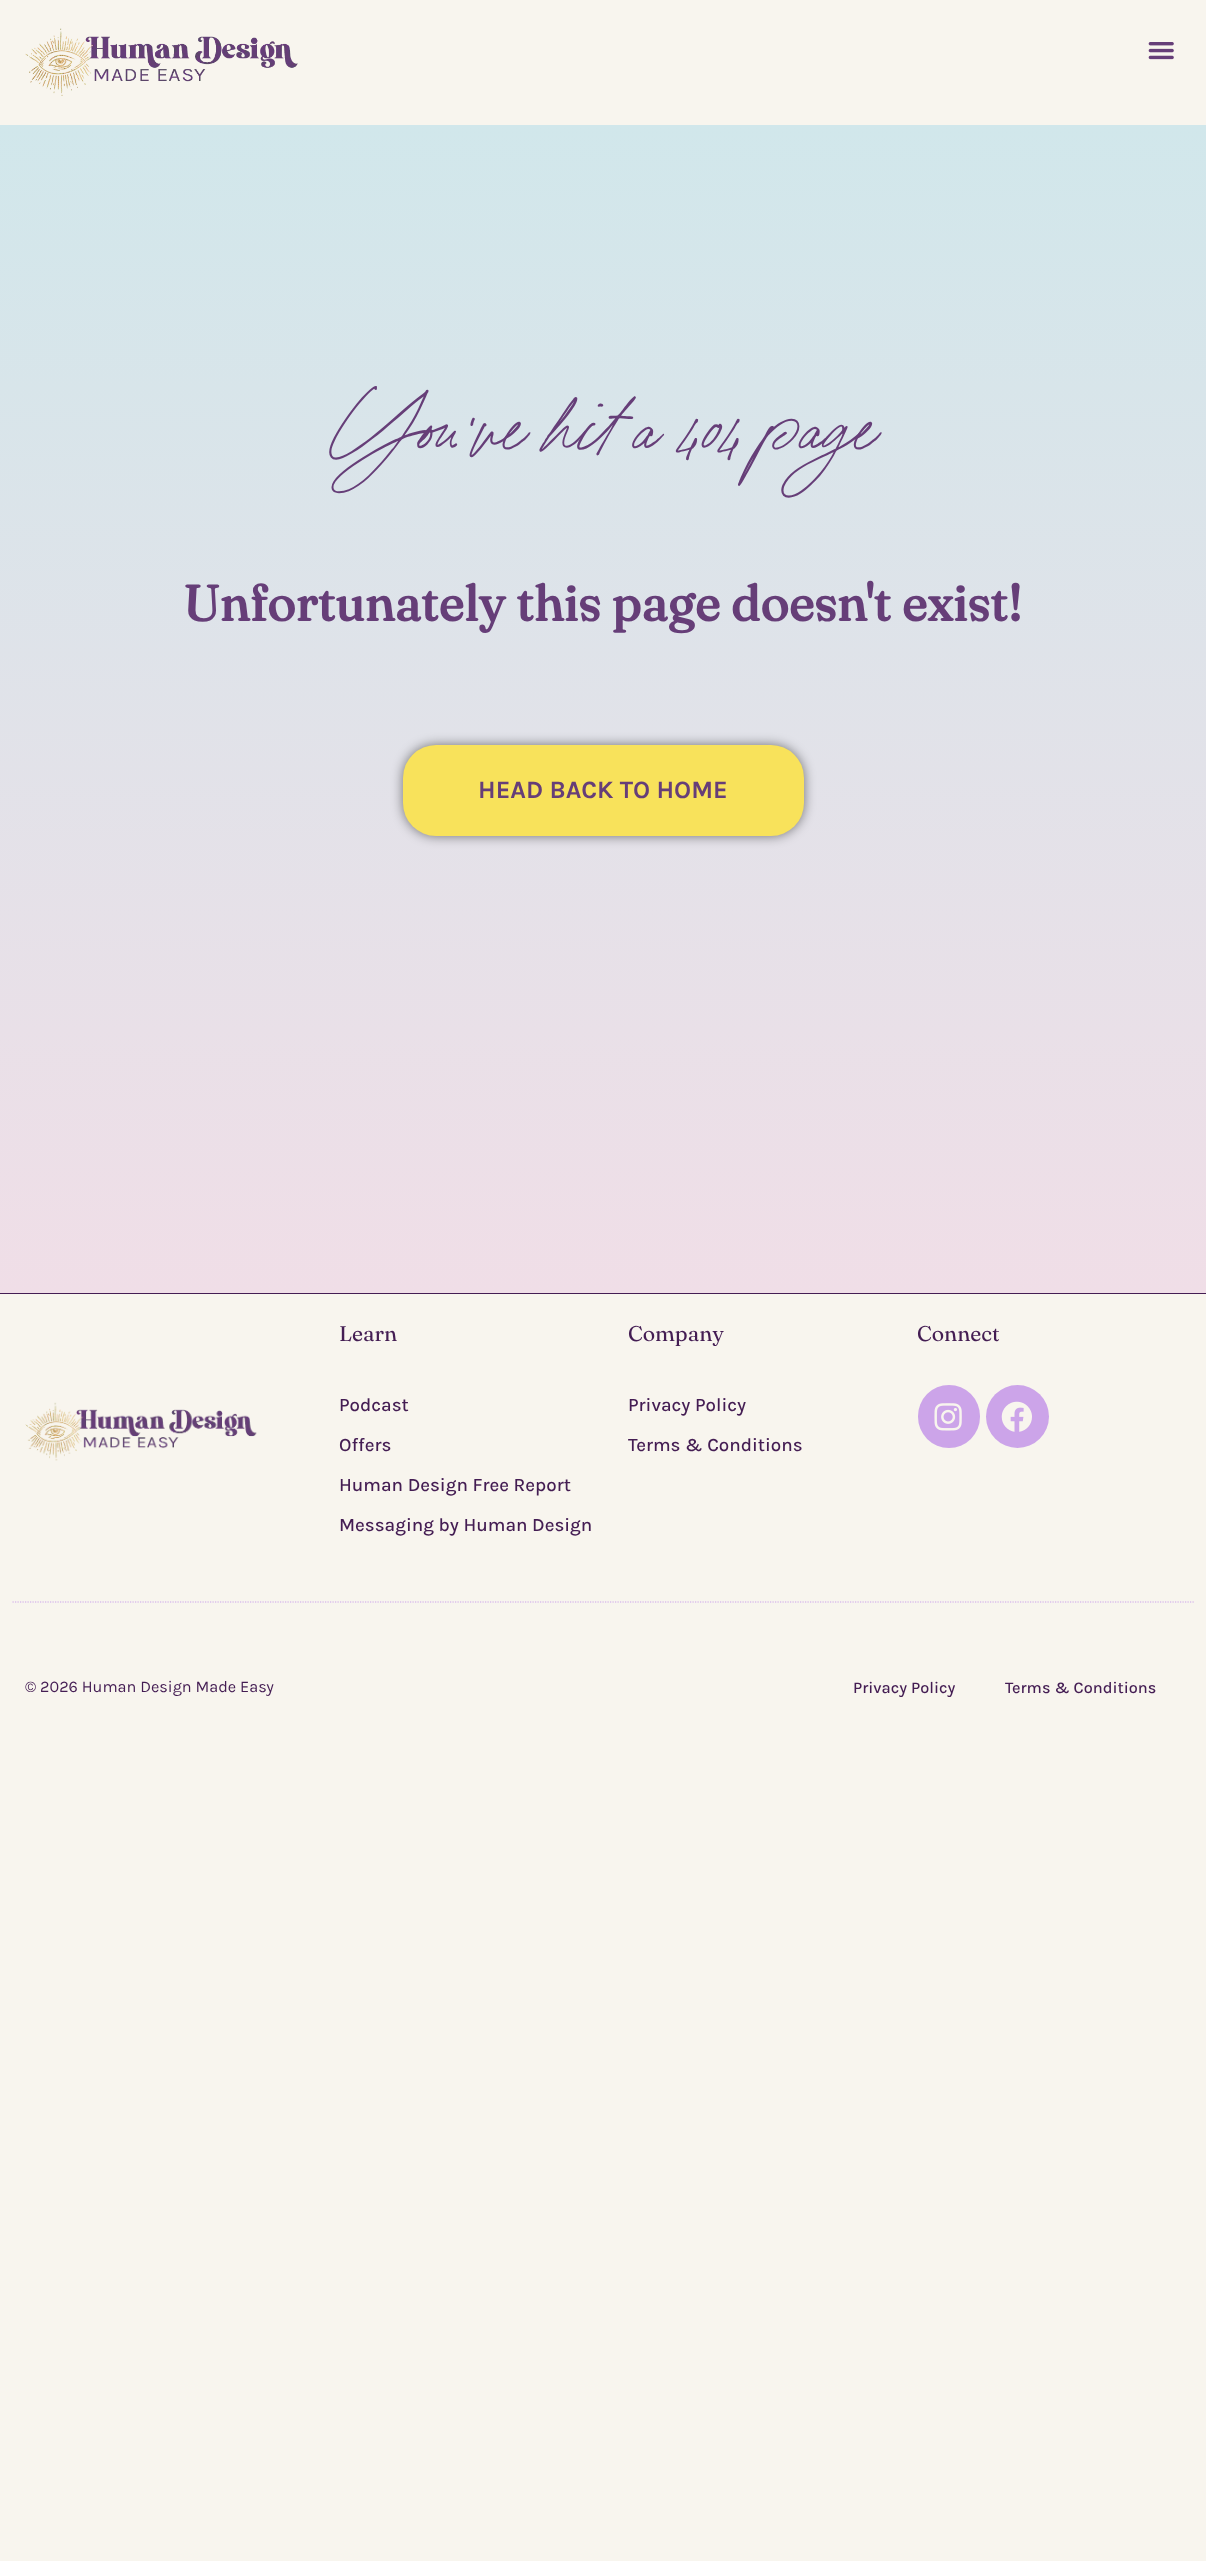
<svg xmlns="http://www.w3.org/2000/svg" width="1206" height="2561" viewBox="0 0 1206 2561">
  <defs>
    <linearGradient id="g1" gradientUnits="userSpaceOnUse" x1="603" y1="125" x2="603" y2="1293"><stop offset="0" stop-color="rgb(209,231,235)"/><stop offset="1" stop-color="rgb(240,222,231)"/></linearGradient>
  </defs>
  <rect width="100%" height="100%" fill="rgb(248,245,238)"/>
  <image x="25" y="28" width="273" height="68" href="pic1.png"/>
  <image x="1148" y="42" width="26" height="18" href="pic2.png"/>
  <rect x="0" y="125" width="1206" height="1168" fill="url(#g1)"/>
  <text x="330" y="448" font-family="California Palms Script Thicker" font-size="115" fill="rgb(102,62,120)">You've hit a 404 page</text>
  <text x="183" y="621" font-family="Fraunces" font-size="50" font-weight="bold" fill="rgb(102,62,120)">Unfortunately this page doesn't exist!</text>
  <rect x="403" y="745" width="401" height="91" rx="33" fill="rgba(0,0,0,0.5)" filter="blur(6px)"/>
  <rect x="403" y="745" width="401" height="91" rx="33" fill="rgb(248,226,91)"/>
  <text x="478" y="798" font-family="Karla" font-size="25" font-weight="bold" fill="rgb(102,62,120)">HEAD BACK TO HOME</text>
  <rect x="0" y="1293" width="1206" height="1" fill="rgb(68,29,83)"/>
  <image x="25" y="1402" width="232" height="59" href="pic3.png"/>
  <text x="339" y="1341" font-family="Fraunces" font-size="21.25" fill="rgb(68,29,83)">Learn</text>
  <g font-family="Karla" font-size="18.75" font-weight="500" fill="rgb(68,29,83)">
    <text x="339" y="1411">Podcast</text>
    <text x="339" y="1451">Offers</text>
    <text x="339" y="1491">Human Design Free Report</text>
    <text x="339" y="1531">Messaging by Human Design</text>
  </g>
  <text x="628" y="1341" font-family="Fraunces" font-size="21.25" fill="rgb(68,29,83)">Company</text>
  <g font-family="Karla" font-size="18.75" font-weight="500" fill="rgb(68,29,83)">
    <text x="628" y="1411">Privacy Policy</text>
    <text x="628" y="1451">Terms &amp; Conditions</text>
  </g>
  <text x="917" y="1341" font-family="Fraunces" font-size="21.25" fill="rgb(68,29,83)">Connect</text>
  <rect x="918" y="1385" width="62" height="63" rx="31" fill="rgb(204,164,233)"/>
  <image x="934" y="1403" width="28" height="28" href="pic4.png"/>
  <circle cx="1017.5" cy="1416.5" r="31.5" fill="rgb(204,164,233)"/>
  <image x="1001" y="1401" width="31" height="31" href="pic5.png"/>
  <path d="M12.5 1602H1194" fill="none" stroke="rgb(204,164,233)" stroke-width="1.2" stroke-dasharray="1.25 1.25"/>
  <text x="25" y="1692" font-family="Karla" font-size="16.25" fill="rgb(68,29,83)">© 2026 Human Design Made Easy</text>
  <g font-family="Karla" font-size="16.25" font-weight="500" fill="rgb(68,29,83)">
    <text x="853" y="1693">Privacy Policy</text>
    <text x="1005" y="1693">Terms &amp; Conditions</text>
  </g>
</svg>
